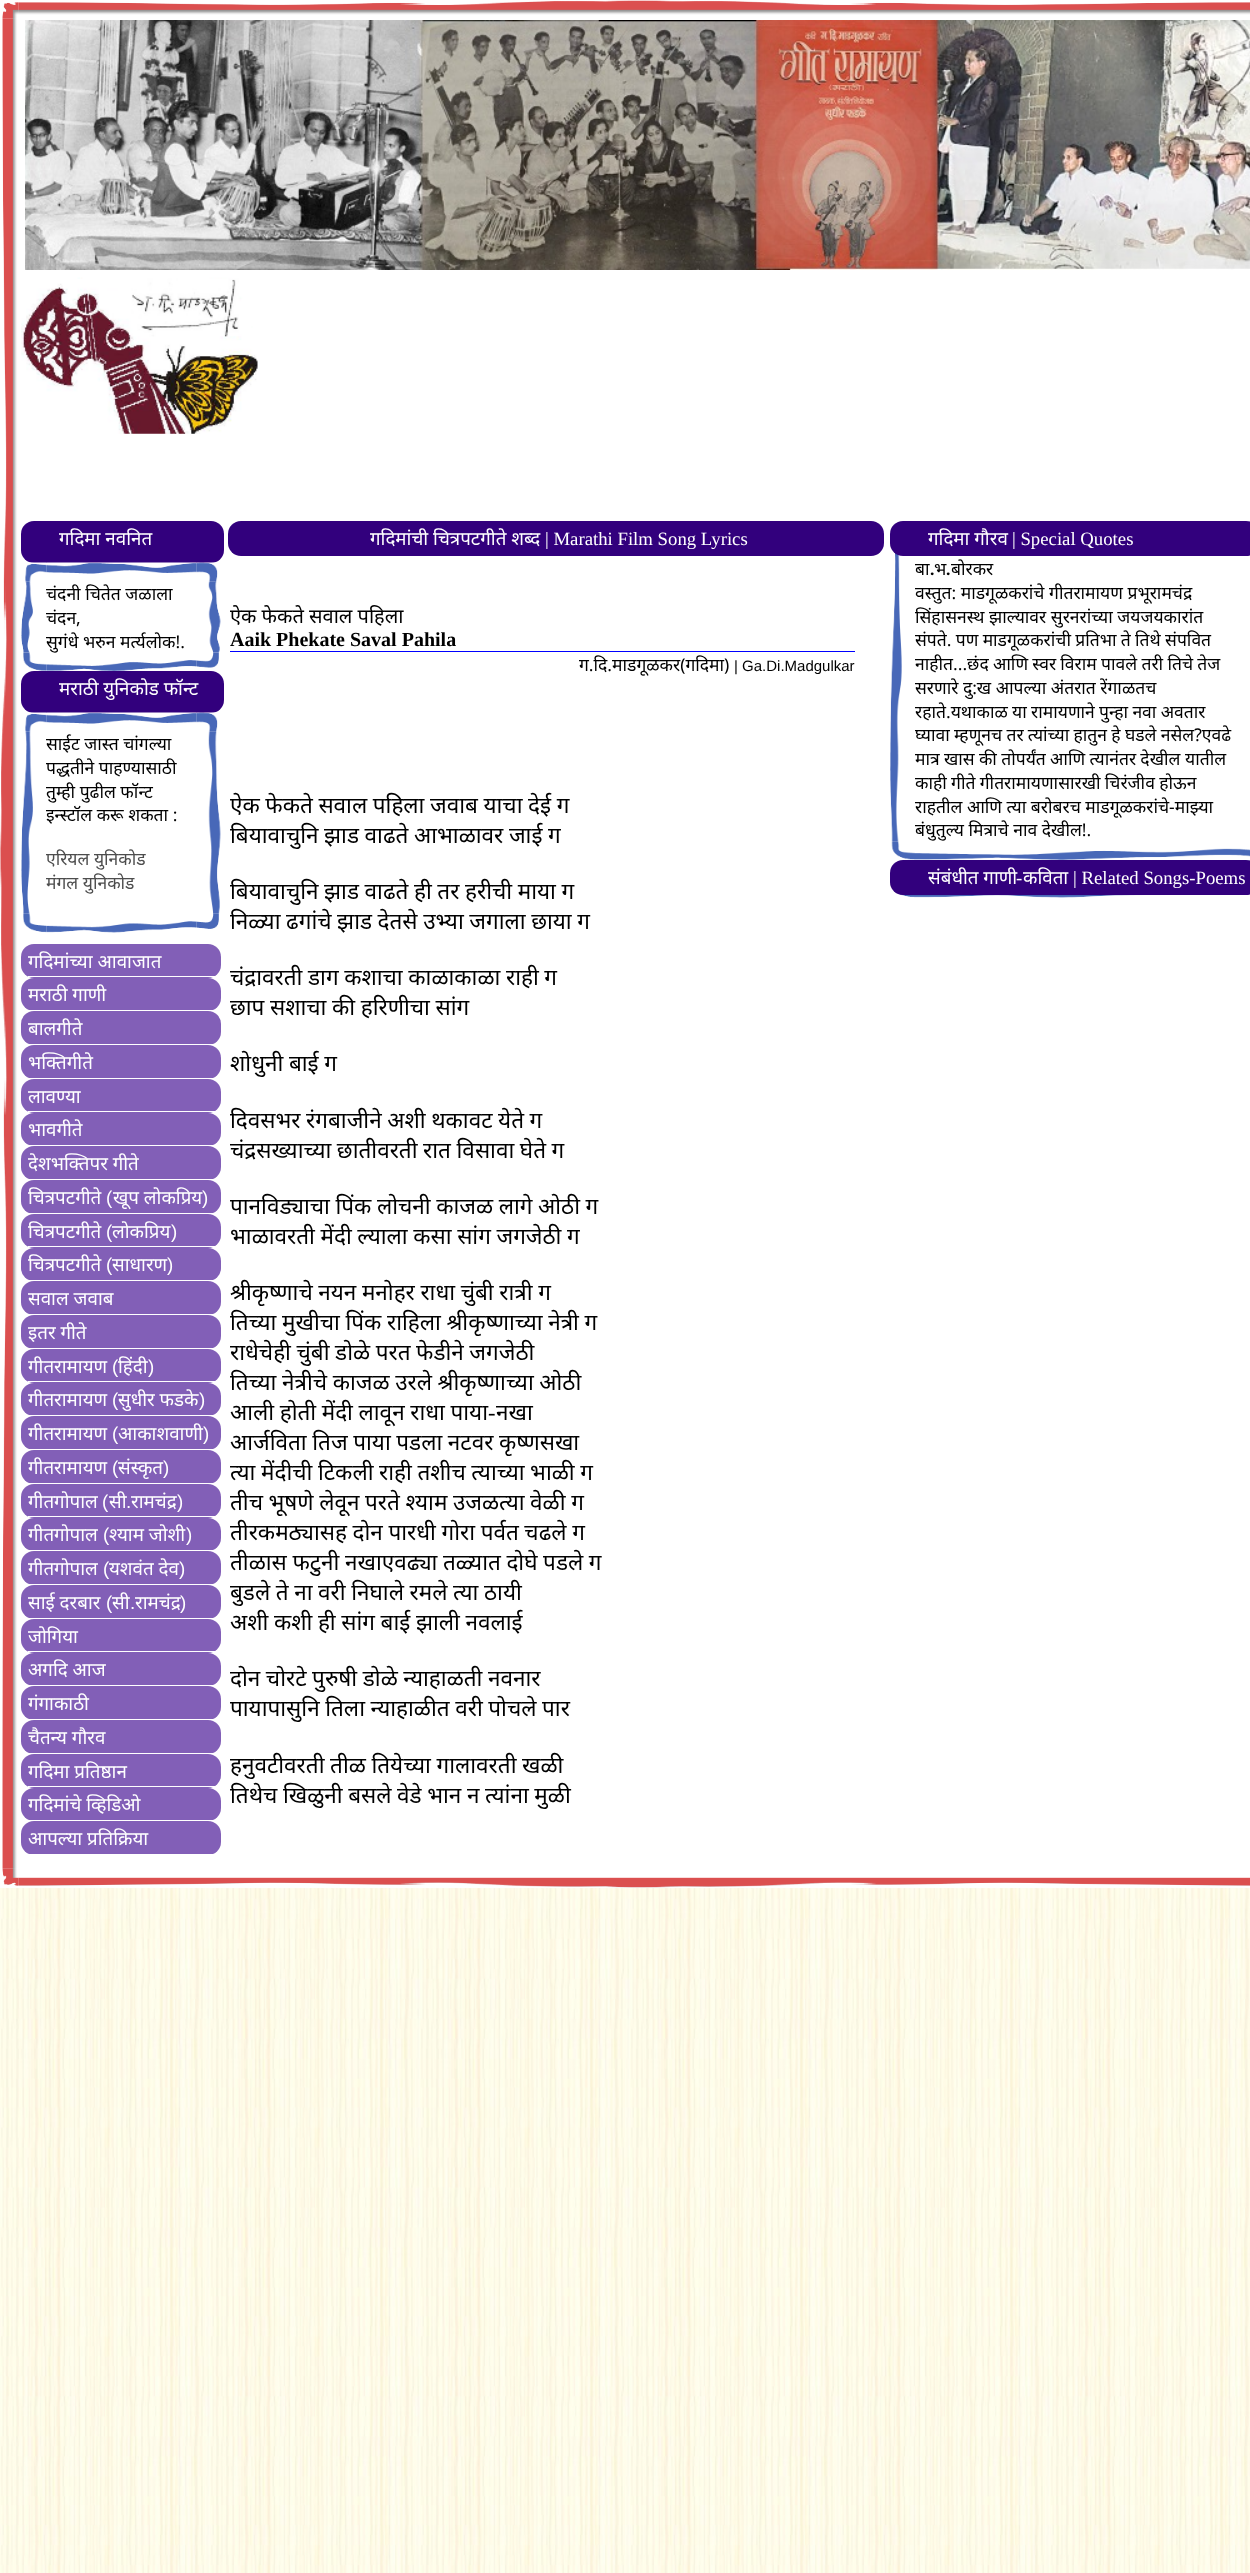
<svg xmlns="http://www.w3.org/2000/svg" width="1250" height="2573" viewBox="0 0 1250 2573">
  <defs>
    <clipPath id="clip1"><rect x="225" y="519" width="663" height="1300"/></clipPath>
  </defs>
  <rect width="100%" height="100%" fill="rgb(255,255,255)"/>
  <image x="0" y="1888" width="1250" height="685" href="pic1.png"/>
  <image x="0" y="0" width="1250" height="1888" href="pic2.png"/>
  <image x="25" y="20" width="1225" height="250" href="pic3.png"/>
  <image x="21" y="277" width="237" height="157" href="pic4.png"/>
  <rect x="21" y="521" width="203" height="42" rx="13" fill="rgb(50,0,125)"/>
  <text x="59" y="545" font-family="Noto Sans" font-size="18.75" fill="rgb(255,255,255)">गदिमा नवनित</text>
  <image x="21" y="562" width="200" height="110" href="pic5.png"/>
  <g font-family="Noto Sans" font-size="17.5" fill="rgb(0,0,0)">
    <text>
      <tspan x="46" y="600">चंदनी चितेत जळाला</tspan>
      <tspan x="46" y="624">चंदन,</tspan>
      <tspan x="46" y="648">सुगंधे भरुन मर्त्यलोक!.</tspan>
    </text>
  </g>
  <rect x="21" y="671" width="203" height="42" rx="13" fill="rgb(50,0,125)"/>
  <text x="59" y="695" font-family="Noto Sans" font-size="18.75" fill="rgb(255,255,255)">मराठी युनिकोड फॉन्ट</text>
  <image x="21" y="712" width="200" height="221" href="pic6.png"/>
  <g font-family="Noto Sans" font-size="17.5" fill="rgb(0,0,0)">
    <text>
      <tspan x="46" y="750">साईट जास्त चांगल्या</tspan>
      <tspan x="46" y="774">पद्धतीने पाहण्यासाठी</tspan>
      <tspan x="46" y="798">तुम्ही पुढील फॉन्ट</tspan>
      <tspan x="46" y="821">इन्स्टॉल करू शकता :</tspan>
    </text>
  </g>
  <g font-family="Noto Sans" font-size="17.5" fill="rgb(77,77,77)">
    <text>
      <tspan x="46" y="865">एरियल युनिकोड</tspan>
      <tspan x="46" y="889">मंगल युनिकोड</tspan>
    </text>
  </g>
  <rect x="21" y="944" width="200" height="34" rx="13" fill="rgb(130,95,183)"/>
  <rect x="28" y="976" width="187" height="1" fill="rgb(255,255,255)"/>
  <text x="28" y="968" font-family="Noto Sans" font-size="18.75" fill="rgb(255,255,255)">गदिमांच्या आवाजात</text>
  <rect x="21" y="978" width="200" height="33" rx="13" fill="rgb(130,95,183)"/>
  <rect x="28" y="1010" width="187" height="1" fill="rgb(255,255,255)"/>
  <text x="28" y="1001" font-family="Noto Sans" font-size="18.75" fill="rgb(255,255,255)">मराठी गाणी</text>
  <rect x="21" y="1011" width="200" height="34" rx="13" fill="rgb(130,95,183)"/>
  <rect x="28" y="1044" width="187" height="1" fill="rgb(255,255,255)"/>
  <text x="28" y="1035" font-family="Noto Sans" font-size="18.75" fill="rgb(255,255,255)">बालगीते</text>
  <rect x="21" y="1045" width="200" height="34" rx="13" fill="rgb(130,95,183)"/>
  <rect x="28" y="1078" width="187" height="1" fill="rgb(255,255,255)"/>
  <text x="28" y="1069" font-family="Noto Sans" font-size="18.75" fill="rgb(255,255,255)">भक्तिगीते</text>
  <rect x="21" y="1079" width="200" height="34" rx="13" fill="rgb(130,95,183)"/>
  <rect x="28" y="1111" width="187" height="1" fill="rgb(255,255,255)"/>
  <text x="28" y="1103" font-family="Noto Sans" font-size="18.75" fill="rgb(255,255,255)">लावण्या</text>
  <rect x="21" y="1113" width="200" height="33" rx="13" fill="rgb(130,95,183)"/>
  <rect x="28" y="1145" width="187" height="1" fill="rgb(255,255,255)"/>
  <text x="28" y="1136" font-family="Noto Sans" font-size="18.75" fill="rgb(255,255,255)">भावगीते</text>
  <rect x="21" y="1146" width="200" height="34" rx="13" fill="rgb(130,95,183)"/>
  <rect x="28" y="1179" width="187" height="1" fill="rgb(255,255,255)"/>
  <text x="28" y="1170" font-family="Noto Sans" font-size="18.75" fill="rgb(255,255,255)">देशभक्तिपर गीते</text>
  <rect x="21" y="1180" width="200" height="34" rx="13" fill="rgb(130,95,183)"/>
  <rect x="28" y="1213" width="187" height="1" fill="rgb(255,255,255)"/>
  <text x="28" y="1204" font-family="Noto Sans" font-size="18.75" fill="rgb(255,255,255)">चित्रपटगीते</text>
  <text x="106" y="1204" font-family="Liberation Sans" font-size="18.75" fill="rgb(255,255,255)">(</text>
  <text x="113" y="1204" font-family="Noto Sans" font-size="18.75" fill="rgb(255,255,255)">खूप लोकप्रिय</text>
  <text x="202" y="1204" font-family="Liberation Sans" font-size="18.75" fill="rgb(255,255,255)">)</text>
  <rect x="21" y="1214" width="200" height="34" rx="13" fill="rgb(130,95,183)"/>
  <rect x="28" y="1246" width="187" height="1" fill="rgb(255,255,255)"/>
  <text x="28" y="1238" font-family="Noto Sans" font-size="18.75" fill="rgb(255,255,255)">चित्रपटगीते</text>
  <text x="106" y="1238" font-family="Liberation Sans" font-size="18.75" fill="rgb(255,255,255)">(</text>
  <text x="112" y="1238" font-family="Noto Sans" font-size="18.75" fill="rgb(255,255,255)">लोकप्रिय</text>
  <text x="171" y="1238" font-family="Liberation Sans" font-size="18.75" fill="rgb(255,255,255)">)</text>
  <rect x="21" y="1248" width="200" height="33" rx="13" fill="rgb(130,95,183)"/>
  <rect x="28" y="1280" width="187" height="1" fill="rgb(255,255,255)"/>
  <text x="28" y="1271" font-family="Noto Sans" font-size="18.75" fill="rgb(255,255,255)">चित्रपटगीते</text>
  <text x="106" y="1271" font-family="Liberation Sans" font-size="18.75" fill="rgb(255,255,255)">(</text>
  <text x="112" y="1271" font-family="Noto Sans" font-size="18.75" fill="rgb(255,255,255)">साधारण</text>
  <text x="167" y="1271" font-family="Liberation Sans" font-size="18.75" fill="rgb(255,255,255)">)</text>
  <rect x="21" y="1281" width="200" height="34" rx="13" fill="rgb(130,95,183)"/>
  <rect x="28" y="1314" width="187" height="1" fill="rgb(255,255,255)"/>
  <text x="28" y="1305" font-family="Noto Sans" font-size="18.75" fill="rgb(255,255,255)">सवाल जवाब</text>
  <rect x="21" y="1315" width="200" height="34" rx="13" fill="rgb(130,95,183)"/>
  <rect x="28" y="1348" width="187" height="1" fill="rgb(255,255,255)"/>
  <text x="28" y="1339" font-family="Noto Sans" font-size="18.75" fill="rgb(255,255,255)">इतर गीते</text>
  <rect x="21" y="1349" width="200" height="34" rx="13" fill="rgb(130,95,183)"/>
  <rect x="28" y="1381" width="187" height="1" fill="rgb(255,255,255)"/>
  <text x="28" y="1373" font-family="Noto Sans" font-size="18.75" fill="rgb(255,255,255)">गीतरामायण</text>
  <text x="112" y="1373" font-family="Liberation Sans" font-size="18.75" fill="rgb(255,255,255)">(</text>
  <text x="118" y="1373" font-family="Noto Sans" font-size="18.75" fill="rgb(255,255,255)">हिंदी</text>
  <text x="148" y="1373" font-family="Liberation Sans" font-size="18.75" fill="rgb(255,255,255)">)</text>
  <rect x="21" y="1383" width="200" height="33" rx="13" fill="rgb(130,95,183)"/>
  <rect x="28" y="1415" width="187" height="1" fill="rgb(255,255,255)"/>
  <text x="28" y="1406" font-family="Noto Sans" font-size="18.75" fill="rgb(255,255,255)">गीतरामायण</text>
  <text x="112" y="1406" font-family="Liberation Sans" font-size="18.75" fill="rgb(255,255,255)">(</text>
  <text x="118" y="1406" font-family="Noto Sans" font-size="18.75" fill="rgb(255,255,255)">सुधीर फडके</text>
  <text x="199" y="1406" font-family="Liberation Sans" font-size="18.75" fill="rgb(255,255,255)">)</text>
  <rect x="21" y="1416" width="200" height="34" rx="13" fill="rgb(130,95,183)"/>
  <rect x="28" y="1449" width="187" height="1" fill="rgb(255,255,255)"/>
  <text x="28" y="1440" font-family="Noto Sans" font-size="18.75" fill="rgb(255,255,255)">गीतरामायण</text>
  <text x="112" y="1440" font-family="Liberation Sans" font-size="18.75" fill="rgb(255,255,255)">(</text>
  <text x="118" y="1440" font-family="Noto Sans" font-size="18.75" fill="rgb(255,255,255)">आकाशवाणी</text>
  <text x="203" y="1440" font-family="Liberation Sans" font-size="18.75" fill="rgb(255,255,255)">)</text>
  <rect x="21" y="1450" width="200" height="34" rx="13" fill="rgb(130,95,183)"/>
  <rect x="28" y="1483" width="187" height="1" fill="rgb(255,255,255)"/>
  <text x="28" y="1474" font-family="Noto Sans" font-size="18.75" fill="rgb(255,255,255)">गीतरामायण</text>
  <text x="112" y="1474" font-family="Liberation Sans" font-size="18.75" fill="rgb(255,255,255)">(</text>
  <text x="118" y="1474" font-family="Noto Sans" font-size="18.75" fill="rgb(255,255,255)">संस्कृत</text>
  <text x="163" y="1474" font-family="Liberation Sans" font-size="18.75" fill="rgb(255,255,255)">)</text>
  <rect x="21" y="1484" width="200" height="34" rx="13" fill="rgb(130,95,183)"/>
  <rect x="28" y="1516" width="187" height="1" fill="rgb(255,255,255)"/>
  <text x="28" y="1508" font-family="Noto Sans" font-size="18.75" fill="rgb(255,255,255)">गीतगोपाल</text>
  <text x="102" y="1508" font-family="Liberation Sans" font-size="18.75" fill="rgb(255,255,255)">(</text>
  <g font-family="Noto Sans" font-size="18.75" fill="rgb(255,255,255)">
    <text x="109" y="1508">सी</text>
    <text x="131" y="1508">रामचंद्र</text>
  </g>
  <g font-family="Liberation Sans" font-size="18.75" fill="rgb(255,255,255)">
    <text x="126" y="1508">.</text>
    <text x="177" y="1508">)</text>
  </g>
  <rect x="21" y="1518" width="200" height="33" rx="13" fill="rgb(130,95,183)"/>
  <rect x="28" y="1550" width="187" height="1" fill="rgb(255,255,255)"/>
  <text x="28" y="1541" font-family="Noto Sans" font-size="18.75" fill="rgb(255,255,255)">गीतगोपाल</text>
  <text x="103" y="1541" font-family="Liberation Sans" font-size="18.75" fill="rgb(255,255,255)">(</text>
  <text x="109" y="1541" font-family="Noto Sans" font-size="18.75" fill="rgb(255,255,255)">श्याम जोशी</text>
  <text x="186" y="1541" font-family="Liberation Sans" font-size="18.75" fill="rgb(255,255,255)">)</text>
  <rect x="21" y="1551" width="200" height="34" rx="13" fill="rgb(130,95,183)"/>
  <rect x="28" y="1584" width="187" height="1" fill="rgb(255,255,255)"/>
  <text x="28" y="1575" font-family="Noto Sans" font-size="18.75" fill="rgb(255,255,255)">गीतगोपाल</text>
  <text x="103" y="1575" font-family="Liberation Sans" font-size="18.75" fill="rgb(255,255,255)">(</text>
  <text x="109" y="1575" font-family="Noto Sans" font-size="18.75" fill="rgb(255,255,255)">यशवंत देव</text>
  <text x="179" y="1575" font-family="Liberation Sans" font-size="18.75" fill="rgb(255,255,255)">)</text>
  <rect x="21" y="1585" width="200" height="34" rx="13" fill="rgb(130,95,183)"/>
  <rect x="28" y="1618" width="187" height="1" fill="rgb(255,255,255)"/>
  <text x="28" y="1609" font-family="Noto Sans" font-size="18.75" fill="rgb(255,255,255)">साई दरबार</text>
  <text x="106" y="1609" font-family="Liberation Sans" font-size="18.75" fill="rgb(255,255,255)">(</text>
  <g font-family="Noto Sans" font-size="18.75" fill="rgb(255,255,255)">
    <text x="112" y="1609">सी</text>
    <text x="135" y="1609">रामचंद्र</text>
  </g>
  <g font-family="Liberation Sans" font-size="18.75" fill="rgb(255,255,255)">
    <text x="130" y="1609">.</text>
    <text x="180" y="1609">)</text>
  </g>
  <rect x="21" y="1619" width="200" height="34" rx="13" fill="rgb(130,95,183)"/>
  <rect x="28" y="1651" width="187" height="1" fill="rgb(255,255,255)"/>
  <text x="28" y="1643" font-family="Noto Sans" font-size="18.75" fill="rgb(255,255,255)">जोगिया</text>
  <rect x="21" y="1653" width="200" height="33" rx="13" fill="rgb(130,95,183)"/>
  <rect x="28" y="1685" width="187" height="1" fill="rgb(255,255,255)"/>
  <text x="28" y="1676" font-family="Noto Sans" font-size="18.75" fill="rgb(255,255,255)">अगदि आज</text>
  <rect x="21" y="1686" width="200" height="34" rx="13" fill="rgb(130,95,183)"/>
  <rect x="28" y="1719" width="187" height="1" fill="rgb(255,255,255)"/>
  <text x="28" y="1710" font-family="Noto Sans" font-size="18.75" fill="rgb(255,255,255)">गंगाकाठी</text>
  <rect x="21" y="1720" width="200" height="34" rx="13" fill="rgb(130,95,183)"/>
  <rect x="28" y="1753" width="187" height="1" fill="rgb(255,255,255)"/>
  <text x="28" y="1744" font-family="Noto Sans" font-size="18.75" fill="rgb(255,255,255)">चैतन्य गौरव</text>
  <rect x="21" y="1754" width="200" height="34" rx="13" fill="rgb(130,95,183)"/>
  <rect x="28" y="1786" width="187" height="1" fill="rgb(255,255,255)"/>
  <text x="28" y="1778" font-family="Noto Sans" font-size="18.75" fill="rgb(255,255,255)">गदिमा प्रतिष्ठान</text>
  <rect x="21" y="1788" width="200" height="33" rx="13" fill="rgb(130,95,183)"/>
  <rect x="28" y="1820" width="187" height="1" fill="rgb(255,255,255)"/>
  <text x="28" y="1811" font-family="Noto Sans" font-size="18.75" fill="rgb(255,255,255)">गदिमांचे व्हिडिओ</text>
  <rect x="21" y="1821" width="200" height="34" rx="13" fill="rgb(130,95,183)"/>
  <rect x="28" y="1854" width="187" height="1" fill="rgb(255,255,255)"/>
  <text x="28" y="1845" font-family="Noto Sans" font-size="18.75" fill="rgb(255,255,255)">आपल्या प्रतिक्रिया</text>
  <rect x="228" y="521" width="656" height="35" rx="13" fill="rgb(50,0,125)"/>
  <text x="370" y="545" font-family="Noto Sans" font-size="18.75" fill="rgb(255,255,255)">गदिमांची चित्रपटगीते शब्द</text>
  <text x="545" y="545" font-family="Liberation Serif" font-size="18.75" fill="rgb(255,255,255)">| Marathi Film Song Lyrics</text>
  <g clip-path="url(#clip1)">
    <text x="230" y="623" font-family="Noto Sans" font-size="20" fill="rgb(0,0,0)">ऐक फेकते सवाल पहिला</text>
  </g>
  <text x="230" y="646" font-family="Liberation Serif" font-size="20" font-weight="bold" fill="rgb(0,0,0)">Aaik Phekate Saval Pahila</text>
  <rect x="230" y="651" width="625" height="1" fill="rgb(0,0,255)"/>
  <text x="579" y="671" font-family="Noto Sans" font-size="17.5" fill="rgb(0,0,0)">ग.दि.माडगूळकर(गदिमा)</text>
  <text x="734" y="671" font-family="Liberation Sans" font-size="15" fill="rgb(0,0,0)">| Ga.Di.Madgulkar</text>
  <g clip-path="url(#clip1)">
    <text x="230" y="813" word-spacing="-0.25" font-family="Noto Sans" font-size="22.5" fill="rgb(0,0,0)">ऐक फेकते सवाल पहिला जवाब याचा देई ग</text>
  </g>
  <g font-family="Noto Sans" font-size="22.5" fill="rgb(0,0,0)">
    <text x="230" y="843" word-spacing="-0.25">बियावाचुनि झाड वाढते आभाळावर जाई ग</text>
    <text>
      <tspan x="230" y="899" word-spacing="-0.25">बियावाचुनि झाड वाढते ही तर हरीची माया ग</tspan>
      <tspan x="230" y="929" word-spacing="-0.25">निळ्या ढगांचे झाड देतसे उभ्या जगाला छाया ग</tspan>
    </text>
    <text>
      <tspan x="230" y="985" word-spacing="-0.25">चंद्रावरती डाग कशाचा काळाकाळा राही ग</tspan>
      <tspan x="230" y="1015" word-spacing="-0.25">छाप सशाचा की हरिणीचा सांग</tspan>
    </text>
    <text x="230" y="1071" word-spacing="-0.25">शोधुनी बाई ग</text>
    <text>
      <tspan x="230" y="1128" word-spacing="-0.25">दिवसभर रंगबाजीने अशी थकावट येते ग</tspan>
      <tspan x="230" y="1158" word-spacing="-0.25">चंद्रसख्याच्या छातीवरती रात विसावा घेते ग</tspan>
    </text>
    <text>
      <tspan x="230" y="1214" word-spacing="-0.25">पानविड्याचा पिंक लोचनी काजळ लागे ओठी ग</tspan>
      <tspan x="230" y="1244" word-spacing="-0.25">भाळावरती मेंदी ल्याला कसा सांग जगजेठी ग</tspan>
    </text>
    <text>
      <tspan x="230" y="1300" word-spacing="-0.25">श्रीकृष्णाचे नयन मनोहर राधा चुंबी रात्री ग</tspan>
      <tspan x="230" y="1330" word-spacing="-0.25">तिच्या मुखीचा पिंक राहिला श्रीकृष्णाच्या नेत्री ग</tspan>
      <tspan x="230" y="1360" word-spacing="-0.25">राधेचेही चुंबी डोळे परत फेडीने जगजेठी</tspan>
      <tspan x="230" y="1390" word-spacing="-0.25">तिच्या नेत्रीचे काजळ उरले श्रीकृष्णाच्या ओठी</tspan>
      <tspan x="230" y="1420" word-spacing="-0.25">आली होती मेंदी लावून राधा पाया</tspan>
    </text>
  </g>
  <text x="488" y="1420" font-family="Liberation Serif" font-size="22.5" fill="rgb(0,0,0)">-</text>
  <g font-family="Noto Sans" font-size="22.5" fill="rgb(0,0,0)">
    <text x="496" y="1420">नखा</text>
    <text>
      <tspan x="230" y="1450" word-spacing="-0.25">आर्जविता तिज पाया पडला नटवर कृष्णसखा</tspan>
      <tspan x="230" y="1480" word-spacing="-0.25">त्या मेंदीची टिकली राही तशीच त्याच्या भाळी ग</tspan>
      <tspan x="230" y="1510" word-spacing="-0.25">तीच भूषणे लेवून परते श्याम उजळत्या वेळी ग</tspan>
      <tspan x="230" y="1540" word-spacing="-0.25">तीरकमठ्यासह दोन पारधी गोरा पर्वत चढले ग</tspan>
      <tspan x="230" y="1570" word-spacing="-0.25">तीळास फटुनी नखाएवढ्या तळ्यात दोघे पडले ग</tspan>
    </text>
  </g>
  <g clip-path="url(#clip1)">
    <text x="230" y="1600" word-spacing="-0.25" font-family="Noto Sans" font-size="22.5" fill="rgb(0,0,0)">बुडले ते ना वरी निघाले रमले त्या ठायी</text>
  </g>
  <g font-family="Noto Sans" font-size="22.5" fill="rgb(0,0,0)">
    <text x="230" y="1630" word-spacing="-0.25">अशी कशी ही सांग बाई झाली नवलाई</text>
    <text>
      <tspan x="230" y="1686" word-spacing="-0.25">दोन चोरटे पुरुषी डोळे न्याहाळती नवनार</tspan>
      <tspan x="230" y="1716" word-spacing="-0.25">पायापासुनि तिला न्याहाळीत वरी पोचले पार</tspan>
    </text>
    <text>
      <tspan x="230" y="1773" word-spacing="-0.25">हनुवटीवरती तीळ तियेच्या गालावरती खळी</tspan>
      <tspan x="230" y="1803" word-spacing="-0.25">तिथेच खिळुनी बसले वेडे भान न त्यांना मुळी</tspan>
    </text>
  </g>
  <image x="890" y="521" width="360" height="339" href="pic7.png"/>
  <rect x="890" y="521" width="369" height="35" rx="13" fill="rgb(50,0,125)"/>
  <text x="928" y="545" font-family="Noto Sans" font-size="18.75" fill="rgb(255,255,255)">गदिमा गौरव</text>
  <text x="1012" y="545" font-family="Liberation Serif" font-size="18.75" fill="rgb(255,255,255)">| Special Quotes</text>
  <text x="915" y="575" font-family="Noto Sans" font-size="17.5" fill="rgb(0,0,0)">बा भ</text>
  <text x="946" y="575" font-family="Liberation Serif" font-size="17.5" font-weight="bold" fill="rgb(0,0,0)">.</text>
  <text x="951" y="575" font-family="Noto Sans" font-size="17.5" fill="rgb(0,0,0)">बोरकर</text>
  <text x="930" y="575" font-family="Liberation Serif" font-size="17.5" font-weight="bold" fill="rgb(0,0,0)">.</text>
  <g font-family="Noto Sans" font-size="17.5" fill="rgb(0,0,0)">
    <text>
      <tspan x="915" y="599">वस्तुत: माडगूळकरांचे गीतरामायण प्रभूरामचंद्र</tspan>
      <tspan x="915" y="623">सिंहासनस्थ झाल्यावर सुरनरांच्या जयजयकारांत</tspan>
      <tspan x="915" y="646" word-spacing="-0.25">संपते. पण माडगूळकरांची प्रतिभा ते तिथे संपवित</tspan>
      <tspan x="915" y="670" word-spacing="-0.25">नाहीत...छंद आणि स्वर विराम पावले तरी तिचे तेज</tspan>
      <tspan x="915" y="694">सरणारे दु:ख आपल्या अंतरात रेंगाळतच</tspan>
      <tspan x="915" y="718" word-spacing="-0.25">रहाते.यथाकाळ या रामायणाने पुन्हा नवा अवतार</tspan>
      <tspan x="915" y="741" word-spacing="-0.25">घ्यावा म्हणूनच तर त्यांच्या हातुन हे घडले नसेल?एवढे</tspan>
      <tspan x="915" y="765" word-spacing="-0.25">मात्र खास की तोपर्यंत आणि त्यानंतर देखील</tspan>
    </text>
    <text x="1185" y="765">यातील</text>
    <text>
      <tspan x="915" y="789" word-spacing="-0.25">काही गीते गीतरामायणासारखी चिरंजीव होऊन</tspan>
      <tspan x="915" y="813">राहतील आणि त्या बरोबरच माडगूळकरांचे-माझ्या</tspan>
      <tspan x="915" y="836">बंधुतुल्य मित्राचे नाव देखील!.</tspan>
    </text>
  </g>
  <image x="891" y="860" width="359" height="38" href="pic8.png"/>
  <rect x="890" y="860" width="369" height="35" rx="13" fill="rgb(50,0,125)"/>
  <text x="928" y="884" font-family="Noto Sans" font-size="18.75" fill="rgb(255,255,255)">संबंधीत गाणी</text>
  <text x="1016" y="884" font-family="Liberation Serif" font-size="18.75" fill="rgb(255,255,255)">-</text>
  <text x="1023" y="884" font-family="Noto Sans" font-size="18.75" fill="rgb(255,255,255)">कविता</text>
  <text x="1073" y="884" font-family="Liberation Serif" font-size="18.75" fill="rgb(255,255,255)">| Related Songs-Poems</text>
</svg>
